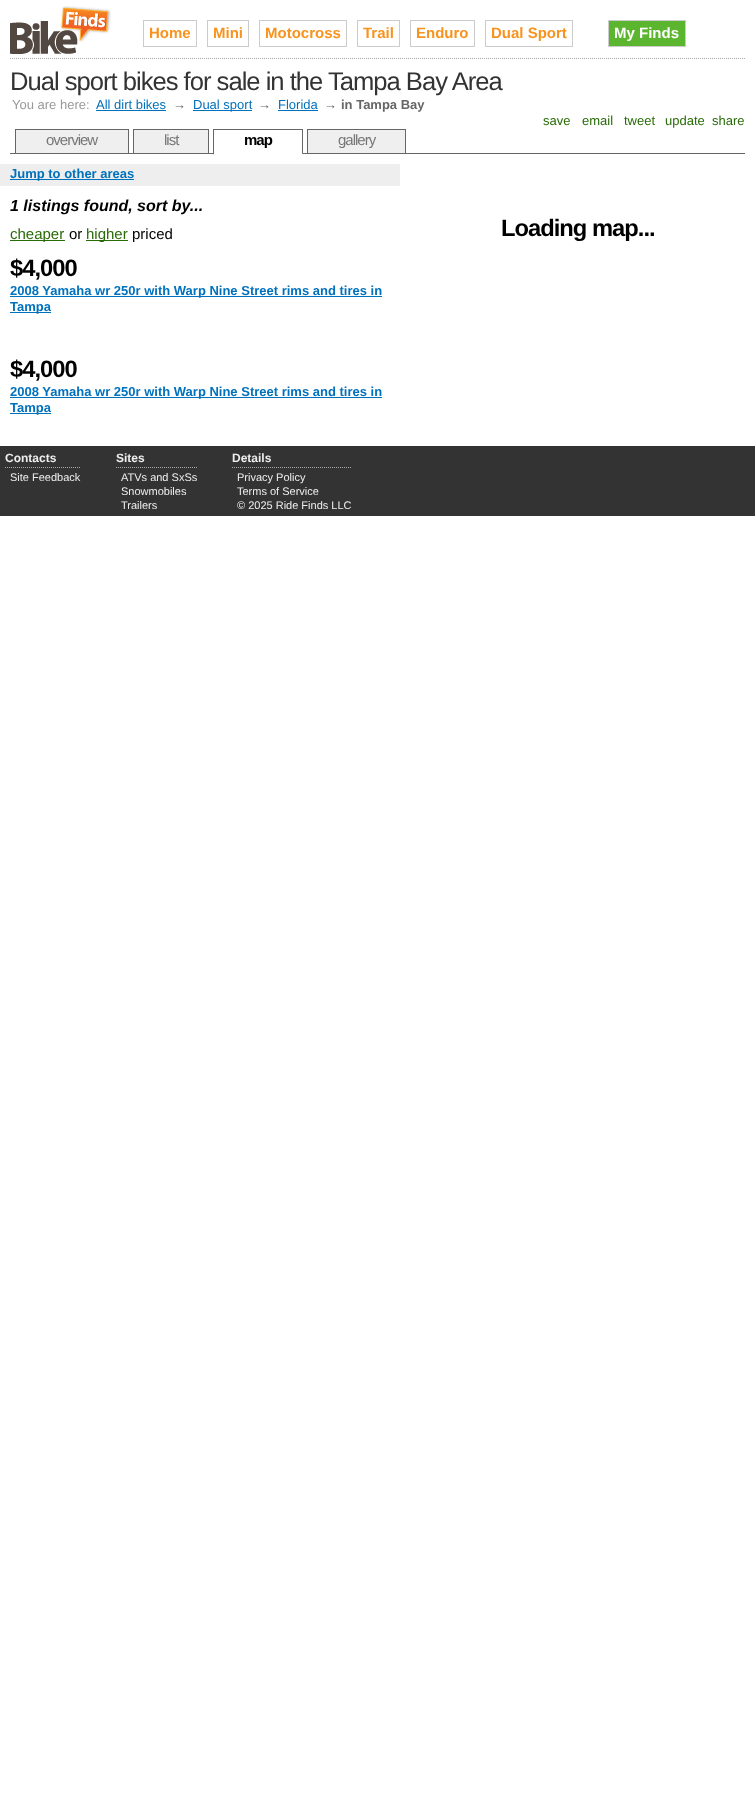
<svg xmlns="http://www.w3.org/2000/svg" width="755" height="1816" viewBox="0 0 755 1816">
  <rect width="100%" height="100%" fill="rgb(255,255,255)"/>
  <image x="10" y="6" width="101" height="48" href="pic1.png"/>
  <rect x="143.5" y="20.5" width="53" height="26" fill="none" stroke="rgb(204,204,204)"/>
  <text x="149" y="38" font-family="Liberation Sans" font-size="15" font-weight="bold" fill="rgb(247,147,30)">Home</text>
  <rect x="207.5" y="20.5" width="41" height="26" fill="none" stroke="rgb(204,204,204)"/>
  <text x="213" y="38" font-family="Liberation Sans" font-size="15" font-weight="bold" fill="rgb(247,147,30)">Mini</text>
  <rect x="259.5" y="20.5" width="87" height="26" fill="none" stroke="rgb(204,204,204)"/>
  <text x="265" y="38" font-family="Liberation Sans" font-size="15" font-weight="bold" fill="rgb(247,147,30)">Motocross</text>
  <rect x="357.5" y="20.5" width="42" height="26" fill="none" stroke="rgb(204,204,204)"/>
  <text x="363" y="38" font-family="Liberation Sans" font-size="15" font-weight="bold" fill="rgb(247,147,30)">Trail</text>
  <rect x="410.5" y="20.5" width="64" height="26" fill="none" stroke="rgb(204,204,204)"/>
  <text x="416" y="38" font-family="Liberation Sans" font-size="15" font-weight="bold" fill="rgb(247,147,30)">Enduro</text>
  <rect x="485.5" y="20.5" width="87" height="26" fill="none" stroke="rgb(204,204,204)"/>
  <text x="491" y="38" font-family="Liberation Sans" font-size="15" font-weight="bold" fill="rgb(247,147,30)">Dual Sport</text>
  <rect x="608.5" y="20.5" width="77" height="26" fill="rgb(92,181,47)" stroke="rgb(204,204,204)"/>
  <text x="614" y="38" font-family="Liberation Sans" font-size="15" font-weight="bold" fill="rgb(255,255,255)">My Finds</text>
  <path d="M10 58.5H745" fill="none" stroke="rgb(170,170,170)" stroke-dasharray="1 1"/>
  <text x="10" y="90" font-family="Liberation Sans" font-size="25.6" letter-spacing="-1" fill="rgb(51,51,51)">Dual sport bikes for sale in the Tampa Bay Area</text>
  <text x="12" y="109" font-family="Liberation Sans" font-size="13" fill="rgb(153,153,153)">You are here:</text>
  <text x="96" y="109" font-family="Liberation Sans" font-size="13" fill="rgb(0,113,188)">All dirt bikes</text>
  <rect x="96" y="110" width="70" height="1" fill="rgb(0,113,188)"/>
  <text x="173" y="109" font-family="Liberation Sans" font-size="13" fill="rgb(102,102,102)">→</text>
  <rect x="193" y="110" width="59" height="1" fill="rgb(0,113,188)"/>
  <text x="193" y="109" font-family="Liberation Sans" font-size="13" fill="rgb(0,113,188)">Dual sport</text>
  <text x="258" y="109" font-family="Liberation Sans" font-size="13" fill="rgb(102,102,102)">→</text>
  <text x="278" y="109" font-family="Liberation Sans" font-size="13" fill="rgb(0,113,188)">Florida</text>
  <rect x="278" y="110" width="40" height="1" fill="rgb(0,113,188)"/>
  <text x="324" y="109" font-family="Liberation Sans" font-size="13" fill="rgb(102,102,102)">→</text>
  <text x="341" y="109" font-family="Liberation Sans" font-size="13" font-weight="bold" fill="rgb(102,102,102)">in Tampa Bay</text>
  <g font-family="Liberation Sans" font-size="13" fill="rgb(40,107,7)">
    <text x="543" y="125">save</text>
    <text x="582" y="125">email</text>
    <text x="624" y="125">tweet</text>
    <text x="665" y="125">update</text>
    <text x="712" y="125">share</text>
  </g>
  <rect x="10" y="153" width="735" height="1" fill="rgb(102,102,102)"/>
  <rect x="16" y="130" width="112" height="23" fill="rgb(239,239,239)"/>
  <rect x="15" y="129" width="114" height="1" fill="rgb(102,102,102)"/>
  <rect x="128" y="129" width="1" height="24" fill="rgb(102,102,102)"/>
  <rect x="15" y="129" width="1" height="24" fill="rgb(102,102,102)"/>
  <text x="46" y="145" font-family="Liberation Sans" font-size="15" letter-spacing="-1" fill="rgb(119,119,119)">overview</text>
  <rect x="134" y="130" width="74" height="23" fill="rgb(239,239,239)"/>
  <rect x="133" y="129" width="76" height="1" fill="rgb(102,102,102)"/>
  <rect x="208" y="129" width="1" height="24" fill="rgb(102,102,102)"/>
  <rect x="133" y="129" width="1" height="24" fill="rgb(102,102,102)"/>
  <text x="164" y="145" font-family="Liberation Sans" font-size="15" letter-spacing="-1" fill="rgb(119,119,119)">list</text>
  <rect x="213" y="129" width="90" height="1" fill="rgb(102,102,102)"/>
  <path d="M303 129V155L302 153V130Z" fill="rgb(102,102,102)"/>
  <path d="M303 155H213L214 153H302Z" fill="rgb(255,255,255)"/>
  <path d="M213 155V129L214 130V153Z" fill="rgb(102,102,102)"/>
  <text x="244" y="145" font-family="Liberation Sans" font-size="15" font-weight="bold" letter-spacing="-1" fill="rgb(0,0,0)">map</text>
  <rect x="308" y="130" width="97" height="23" fill="rgb(239,239,239)"/>
  <rect x="307" y="129" width="99" height="1" fill="rgb(102,102,102)"/>
  <rect x="405" y="129" width="1" height="24" fill="rgb(102,102,102)"/>
  <rect x="307" y="129" width="1" height="24" fill="rgb(102,102,102)"/>
  <text x="338" y="145" font-family="Liberation Sans" font-size="15" letter-spacing="-1" fill="rgb(119,119,119)">gallery</text>
  <rect x="0" y="164" width="400" height="22" fill="rgb(238,238,238)"/>
  <rect x="10" y="179" width="124" height="1" fill="rgb(0,113,188)"/>
  <text x="10" y="178" font-family="Liberation Sans" font-size="13" font-weight="bold" fill="rgb(0,113,188)">Jump to other areas</text>
  <text x="10" y="211" font-family="Liberation Sans" font-size="16" font-weight="bold" font-style="italic" fill="rgb(0,0,0)">1 listings found, sort by...</text>
  <rect x="10" y="240" width="55" height="1" fill="rgb(40,107,7)"/>
  <text x="10" y="239" font-family="Liberation Sans" font-size="15" fill="rgb(40,107,7)">cheaper</text>
  <text x="69" y="239" font-family="Liberation Sans" font-size="15" fill="rgb(0,0,0)">or</text>
  <rect x="86" y="240" width="42" height="1" fill="rgb(40,107,7)"/>
  <text x="86" y="239" font-family="Liberation Sans" font-size="15" fill="rgb(40,107,7)">higher</text>
  <text x="132" y="239" font-family="Liberation Sans" font-size="15" fill="rgb(0,0,0)">priced</text>
  <text x="10" y="276" font-family="Liberation Sans" font-size="23.75" font-weight="bold" letter-spacing="-1" fill="rgb(0,0,0)">$4,000</text>
  <rect x="10" y="296" width="372" height="1" fill="rgb(0,113,188)"/>
  <text x="10" y="295" font-family="Liberation Sans" font-size="13" font-weight="bold" fill="rgb(0,113,188)">2008 Yamaha wr 250r with Warp Nine Street rims and tires in</text>
  <rect x="10" y="312" width="41" height="1" fill="rgb(0,113,188)"/>
  <text x="10" y="311" font-family="Liberation Sans" font-size="13" font-weight="bold" fill="rgb(0,113,188)">Tampa</text>
  <text x="10" y="377" font-family="Liberation Sans" font-size="23.75" font-weight="bold" letter-spacing="-1" fill="rgb(0,0,0)">$4,000</text>
  <rect x="10" y="397" width="372" height="1" fill="rgb(0,113,188)"/>
  <text x="10" y="396" font-family="Liberation Sans" font-size="13" font-weight="bold" fill="rgb(0,113,188)">2008 Yamaha wr 250r with Warp Nine Street rims and tires in</text>
  <rect x="10" y="413" width="41" height="1" fill="rgb(0,113,188)"/>
  <text x="10" y="412" font-family="Liberation Sans" font-size="13" font-weight="bold" fill="rgb(0,113,188)">Tampa</text>
  <text x="501" y="236" font-family="Liberation Sans" font-size="23.75" font-weight="bold" letter-spacing="-1" fill="rgb(0,0,0)">Loading map...</text>
  <rect x="0" y="446" width="755" height="70" fill="rgb(51,51,51)"/>
  <path d="M5 467.5H81" fill="none" stroke="rgb(170,170,170)" stroke-dasharray="1 1"/>
  <text x="5" y="462" font-family="Liberation Sans" font-size="12" font-weight="bold" fill="rgb(238,238,238)">Contacts</text>
  <text x="10" y="481" font-family="Liberation Sans" font-size="11" fill="rgb(238,238,238)">Site Feedback</text>
  <path d="M116 467.5H197" fill="none" stroke="rgb(170,170,170)" stroke-dasharray="1 1"/>
  <text x="116" y="462" font-family="Liberation Sans" font-size="12" font-weight="bold" fill="rgb(238,238,238)">Sites</text>
  <g font-family="Liberation Sans" font-size="11" fill="rgb(238,238,238)">
    <text>
      <tspan x="121" y="481">ATVs and SxSs</tspan>
      <tspan x="121" y="495">Snowmobiles</tspan>
      <tspan x="121" y="509">Trailers</tspan>
    </text>
  </g>
  <path d="M232 467.5H352" fill="none" stroke="rgb(170,170,170)" stroke-dasharray="1 1"/>
  <text x="232" y="462" font-family="Liberation Sans" font-size="12" font-weight="bold" fill="rgb(238,238,238)">Details</text>
  <g font-family="Liberation Sans" font-size="11" fill="rgb(238,238,238)">
    <text>
      <tspan x="237" y="481">Privacy Policy</tspan>
      <tspan x="237" y="495">Terms of Service</tspan>
      <tspan x="237" y="509">© 2025 Ride Finds LLC</tspan>
    </text>
  </g>
</svg>
